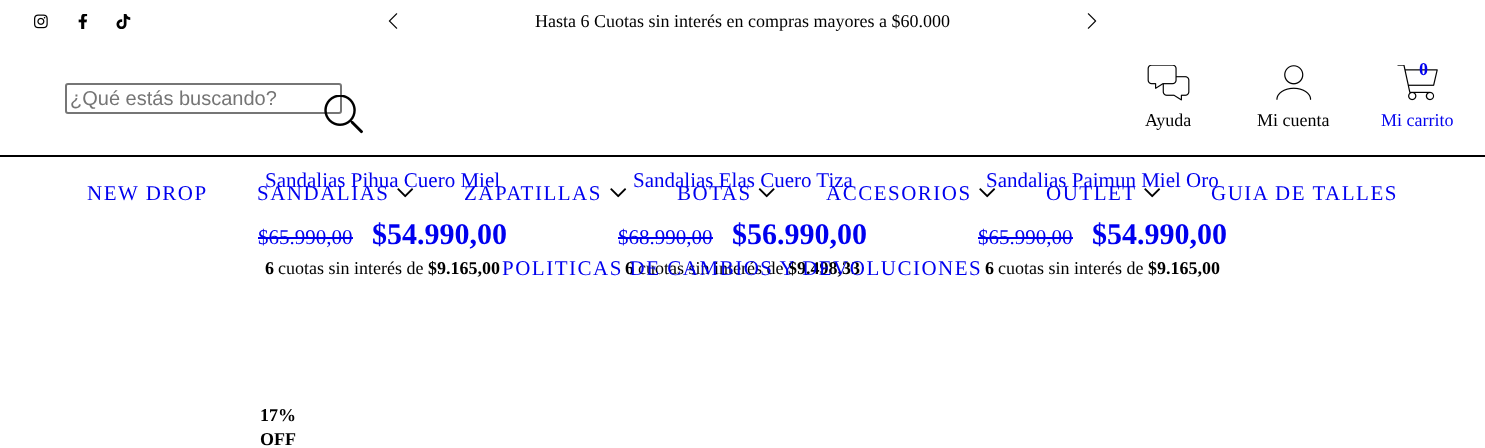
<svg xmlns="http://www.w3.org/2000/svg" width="1485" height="448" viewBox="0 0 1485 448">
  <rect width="100%" height="100%" fill="rgb(255,255,255)"/>
  <image x="34" y="14" width="14" height="15" href="pic1.png"/>
  <image x="78" y="14" width="10" height="15" href="pic2.png"/>
  <image x="116" y="14" width="15" height="15" href="pic3.png"/>
  <image x="388" y="13" width="10" height="16" href="pic4.png"/>
  <text x="535" y="27" font-family="Liberation Serif" font-size="18" fill="rgb(0,0,0)">Hasta 6 Cuotas sin interés en compras mayores a $60.000</text>
  <image x="1087" y="13" width="10" height="16" href="pic5.png"/>
  <rect x="66" y="84" width="275" height="29" rx="2" fill="none" stroke="rgb(118,118,118)" stroke-width="2"/>
  <text x="70" y="105" font-family="Liberation Sans" font-size="20" fill="rgb(117,117,117)">¿Qué estás buscando?</text>
  <image x="324" y="95" width="39" height="39" href="pic6.png"/>
  <image x="1147" y="65" width="43" height="36" href="pic7.png"/>
  <text x="1145" y="126" font-family="Liberation Serif" font-size="18" fill="rgb(0,0,0)">Ayuda</text>
  <image x="1276" y="65" width="36" height="35" href="pic8.png"/>
  <text x="1257" y="126" font-family="Liberation Serif" font-size="18" fill="rgb(0,0,0)">Mi cuenta</text>
  <image x="1397" y="65" width="41" height="36" href="pic9.png"/>
  <text x="1419" y="75" font-family="Liberation Serif" font-size="18" font-weight="bold" fill="rgb(0,0,238)">0</text>
  <text x="1381" y="126" font-family="Liberation Serif" font-size="18" fill="rgb(0,0,238)">Mi carrito</text>
  <rect x="0" y="155" width="1485" height="2" fill="rgb(0,0,0)"/>
  <g font-family="Liberation Serif" font-size="21" letter-spacing="1.5" fill="rgb(0,0,238)">
    <text x="87" y="200">NEW DROP</text>
    <text x="257" y="200">SANDALIAS</text>
  </g>
  <image x="397" y="188" width="17" height="10" href="pic10.png"/>
  <text x="464" y="200" font-family="Liberation Serif" font-size="21" letter-spacing="1.5" fill="rgb(0,0,238)">ZAPATILLAS</text>
  <image x="610" y="188" width="17" height="10" href="pic10.png"/>
  <text x="677" y="200" font-family="Liberation Serif" font-size="21" letter-spacing="1.5" fill="rgb(0,0,238)">BOTAS</text>
  <image x="758" y="188" width="17" height="10" href="pic11.png"/>
  <text x="826" y="200" font-family="Liberation Serif" font-size="21" letter-spacing="1.5" fill="rgb(0,0,238)">ACCESORIOS</text>
  <image x="979" y="188" width="17" height="10" href="pic10.png"/>
  <text x="1046" y="200" font-family="Liberation Serif" font-size="21" letter-spacing="1.5" fill="rgb(0,0,238)">OUTLET</text>
  <image x="1144" y="188" width="17" height="10" href="pic10.png"/>
  <text x="1211" y="200" font-family="Liberation Serif" font-size="21" letter-spacing="1.5" fill="rgb(0,0,238)">GUIA DE TALLES</text>
  <text x="625" y="274" font-family="Liberation Serif" font-size="18" font-weight="bold" fill="rgb(0,0,0)">6</text>
  <text x="638" y="274" font-family="Liberation Serif" font-size="18" fill="rgb(0,0,0)">cuotas sin interés de</text>
  <text x="788" y="274" font-family="Liberation Serif" font-size="18" font-weight="bold" fill="rgb(0,0,0)">$9.498,33</text>
  <text x="502" y="275" font-family="Liberation Serif" font-size="21" letter-spacing="1.5" fill="rgb(0,0,238)">POLITICAS DE CAMBIOS Y DEVOLUCIONES</text>
  <g font-family="Liberation Serif" font-size="21" fill="rgb(0,0,238)">
    <text x="265" y="187">Sandalias Pihua Cuero Miel</text>
    <text x="258" y="244">$65.990,00</text>
  </g>
  <rect x="258" y="237" width="95" height="2" fill="rgb(0,0,238)"/>
  <text x="372" y="244" font-family="Liberation Serif" font-size="30" font-weight="bold" fill="rgb(0,0,238)">$54.990,00</text>
  <text x="265" y="274" font-family="Liberation Serif" font-size="18" font-weight="bold" fill="rgb(0,0,0)">6</text>
  <text x="278" y="274" font-family="Liberation Serif" font-size="18" fill="rgb(0,0,0)">cuotas sin interés de</text>
  <text x="428" y="274" font-family="Liberation Serif" font-size="18" font-weight="bold" fill="rgb(0,0,0)">$9.165,00</text>
  <g font-family="Liberation Serif" font-size="21" fill="rgb(0,0,238)">
    <text x="633" y="187">Sandalias Elas Cuero Tiza</text>
    <text x="618" y="244">$68.990,00</text>
  </g>
  <rect x="618" y="237" width="95" height="2" fill="rgb(0,0,238)"/>
  <text x="732" y="244" font-family="Liberation Serif" font-size="30" font-weight="bold" fill="rgb(0,0,238)">$56.990,00</text>
  <g font-family="Liberation Serif" font-size="21" fill="rgb(0,0,238)">
    <text x="986" y="187">Sandalias Paimun Miel Oro</text>
    <text x="978" y="244">$65.990,00</text>
  </g>
  <rect x="978" y="237" width="95" height="2" fill="rgb(0,0,238)"/>
  <text x="1092" y="244" font-family="Liberation Serif" font-size="30" font-weight="bold" fill="rgb(0,0,238)">$54.990,00</text>
  <text x="985" y="274" font-family="Liberation Serif" font-size="18" font-weight="bold" fill="rgb(0,0,0)">6</text>
  <text x="998" y="274" font-family="Liberation Serif" font-size="18" fill="rgb(0,0,0)">cuotas sin interés de</text>
  <g font-family="Liberation Serif" font-size="18" font-weight="bold" fill="rgb(0,0,0)">
    <text x="1148" y="274">$9.165,00</text>
    <text>
      <tspan x="260" y="421">17%</tspan>
      <tspan x="260" y="445">OFF</tspan>
    </text>
  </g>
</svg>
